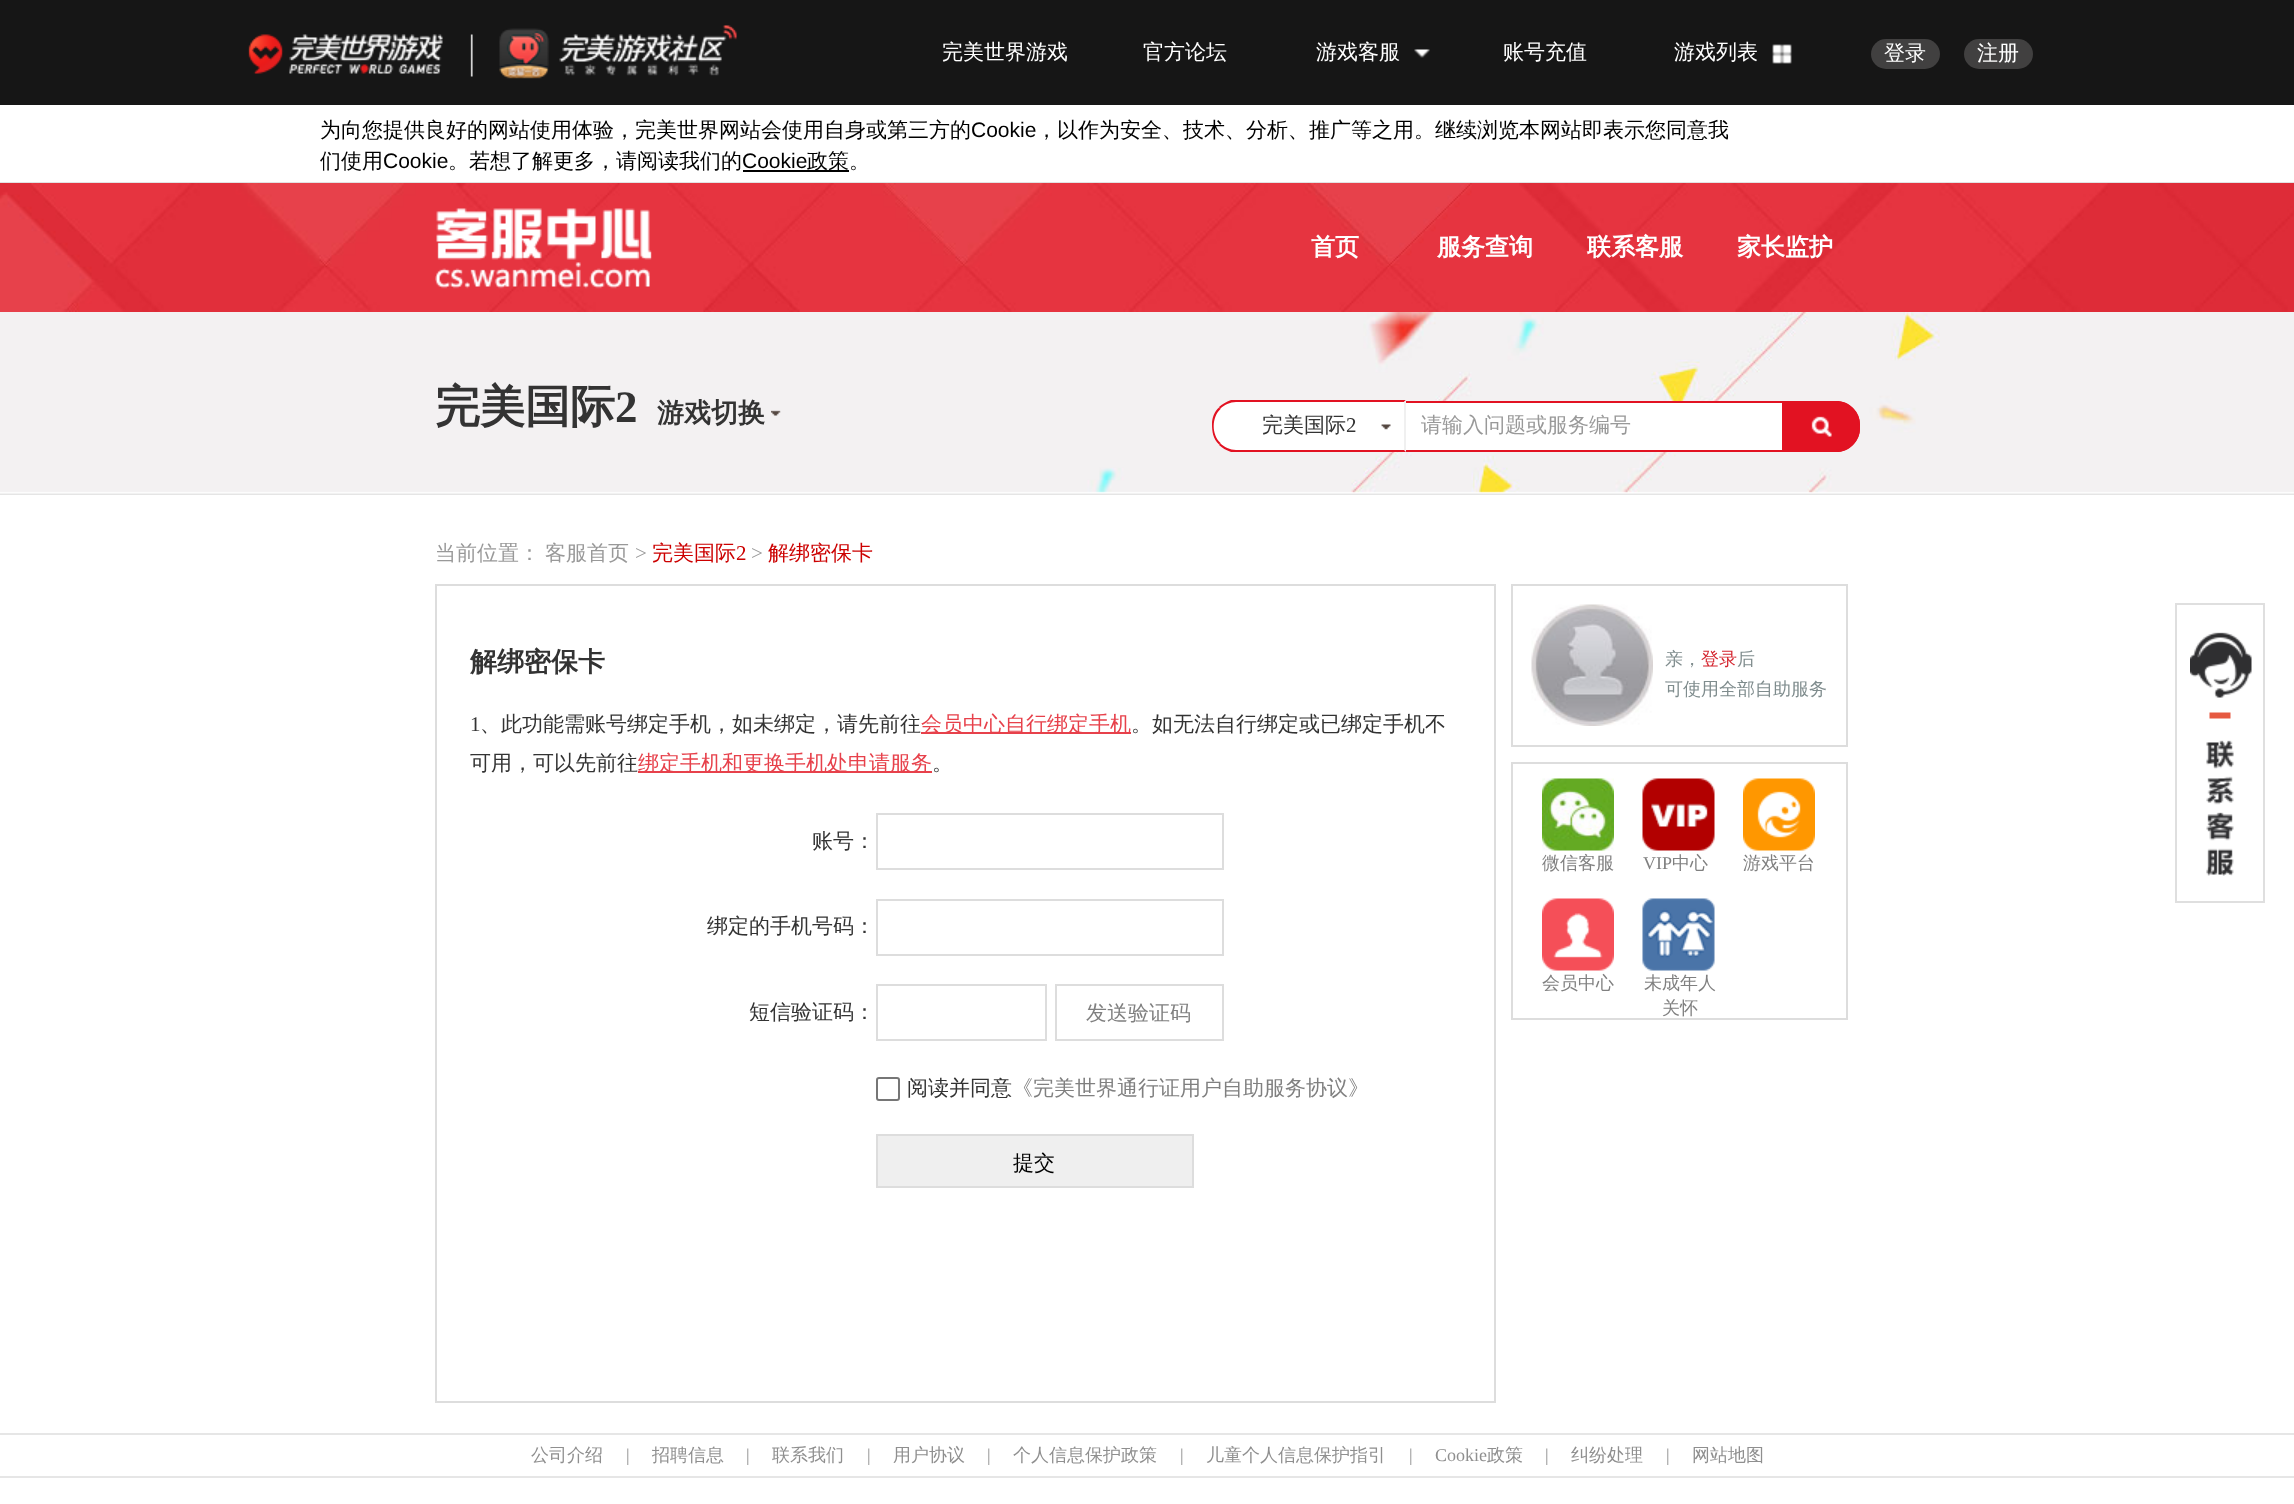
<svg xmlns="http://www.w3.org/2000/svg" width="2294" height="1504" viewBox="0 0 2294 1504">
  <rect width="100%" height="100%" fill="rgb(255,255,255)"/>
  <rect x="0" y="0" width="2294" height="105" fill="rgb(22,22,22)"/>
  <image x="248" y="25" width="489" height="54" href="pic1.png"/>
  <g font-family="WenQuanYi Zen Hei" font-size="21" font-weight="500" fill="rgb(255,255,255)">
    <text x="942" y="59">完美世界游戏</text>
    <text x="1143" y="59">官方论坛</text>
    <text x="1316" y="59">游戏客服</text>
  </g>
  <image x="1414" y="49" width="16" height="9" href="pic2.png"/>
  <g font-family="WenQuanYi Zen Hei" font-size="21" font-weight="500" fill="rgb(255,255,255)">
    <text x="1503" y="59">账号充值</text>
    <text x="1674" y="59">游戏列表</text>
  </g>
  <image x="1772" y="44" width="20" height="20" href="pic3.png"/>
  <rect x="1871" y="39" width="69" height="30" rx="15" fill="rgb(65,64,64)"/>
  <text x="1884" y="60" font-family="WenQuanYi Zen Hei" font-size="21" font-weight="500" fill="rgb(255,255,255)">登录</text>
  <rect x="1964" y="39" width="69" height="30" rx="15" fill="rgb(65,64,64)"/>
  <text x="1977" y="60" font-family="WenQuanYi Zen Hei" font-size="21" font-weight="500" fill="rgb(255,255,255)">注册</text>
  <rect x="0" y="182" width="2294" height="1" fill="rgb(226,226,226)"/>
  <text x="320" y="137" font-family="WenQuanYi Zen Hei" font-size="21" font-weight="500" fill="rgb(0,0,0)">为向您提供良好的网站使用体验，完美世界网站会使用自身或第三方的</text>
  <text x="971" y="137" font-family="Liberation Sans" font-size="21" fill="rgb(0,0,0)">Cookie</text>
  <g font-family="WenQuanYi Zen Hei" font-size="21" font-weight="500" fill="rgb(0,0,0)">
    <text x="1036" y="137">，以作为安全、技术、分析、推广等之用。继续浏览本网站即表示您同意我</text>
    <text x="320" y="168">们使用</text>
  </g>
  <text x="383" y="168" font-family="Liberation Sans" font-size="21" fill="rgb(0,0,0)">Cookie</text>
  <text x="448" y="168" font-family="WenQuanYi Zen Hei" font-size="21" font-weight="500" fill="rgb(0,0,0)">。若想了解更多，请阅读我们的</text>
  <text x="742" y="168" font-family="Liberation Sans" font-size="21" fill="rgb(0,0,0)">Cookie</text>
  <rect x="743" y="170" width="106" height="2" fill="rgb(0,0,0)"/>
  <text x="807" y="168" font-family="WenQuanYi Zen Hei" font-size="21" font-weight="500" fill="rgb(0,0,0)">政策。</text>
  <image x="0" y="183" width="2294" height="129" href="pic4.png"/>
  <image x="435" y="208" width="217" height="81" href="pic5.png"/>
  <g font-family="WenQuanYi Zen Hei" font-size="24" font-weight="bold" fill="rgb(255,255,255)">
    <text x="1311" y="255">首页</text>
    <text x="1437" y="255">服务查询</text>
    <text x="1587" y="255">联系客服</text>
    <text x="1737" y="255">家长监护</text>
  </g>
  <image x="0" y="312" width="2294" height="183" href="pic6.png"/>
  <text x="435" y="422" font-family="WenQuanYi Zen Hei" font-size="45" font-weight="bold" fill="rgb(51,51,51)">完美国际</text>
  <text x="615" y="422" font-family="Liberation Serif" font-size="45" font-weight="bold" fill="rgb(51,51,51)">2</text>
  <image x="771" y="410" width="10" height="6" href="pic7.png"/>
  <text x="657" y="422" font-family="WenQuanYi Zen Hei" font-size="27" font-weight="bold" fill="rgb(51,51,51)">游戏切换</text>
  <path d="M1236 401H1406V452H1236C1222.5 452 1212 441.5 1212 428V425C1212 411.5 1222.5 401 1236 401Z" fill="rgb(255,255,255)"/>
  <image x="1381" y="424" width="10" height="6" href="pic8.png"/>
  <path d="M1236 402C1230 402 1224 405 1220 409L1219 407C1222 404 1226 402 1231 400H1406L1404 402Z" fill="rgb(226,18,34)"/>
  <path d="M1406 400L1404 402V450L1406 452Z" fill="rgb(240,240,240)"/>
  <path d="M1406 452H1231C1226 450 1222 448 1219 445L1220 443C1224 447 1230 450 1236 450H1404Z" fill="rgb(226,18,34)"/>
  <path d="M1212 424C1212 432 1213 438.5 1219 444.5L1220.5 443C1211.5 434.5 1211.5 417.5 1220.5 409L1219 407.5C1214.5 411.5 1212 417.5 1212 424Z" fill="rgb(226,18,34)"/>
  <text x="1262" y="432" font-family="WenQuanYi Zen Hei" font-size="21" font-weight="500" fill="rgb(51,51,51)">完美国际</text>
  <text x="1346" y="432" font-family="Liberation Serif" font-size="21" fill="rgb(51,51,51)">2</text>
  <rect x="1406" y="403" width="376" height="47" fill="rgb(255,255,255)"/>
  <rect x="1406" y="401" width="378" height="2" fill="rgb(226,18,34)"/>
  <rect x="1782" y="401" width="2" height="51" fill="rgb(226,18,34)"/>
  <rect x="1406" y="450" width="378" height="2" fill="rgb(226,18,34)"/>
  <text x="1421" y="432" font-family="WenQuanYi Zen Hei" font-size="21" font-weight="500" fill="rgb(153,153,153)">请输入问题或服务编号</text>
  <path d="M1784 401H1836C1849.5 401 1860 411.5 1860 425V428C1860 441.5 1849.5 452 1836 452H1784Z" fill="rgb(226,18,34)"/>
  <image x="1811" y="416" width="21" height="21" href="pic9.png"/>
  <path d="M1785 402H1836C1848.5 402 1859 412.5 1859 425V428C1859 440.5 1848.5 451 1836 451H1785Z" fill="none" stroke="rgb(226,18,34)" stroke-width="2"/>
  <g font-family="WenQuanYi Zen Hei" font-size="21" font-weight="500" fill="rgb(153,153,153)">
    <text x="435" y="560">当前位置：</text>
    <text x="545" y="560">客服首页</text>
  </g>
  <text x="635" y="560" font-family="Liberation Serif" font-size="21" fill="rgb(153,153,153)">&gt;</text>
  <text x="652" y="560" font-family="WenQuanYi Zen Hei" font-size="21" font-weight="500" fill="rgb(204,0,0)">完美国际</text>
  <text x="736" y="560" font-family="Liberation Serif" font-size="21" fill="rgb(204,0,0)">2</text>
  <text x="751" y="560" font-family="Liberation Serif" font-size="21" fill="rgb(153,153,153)">&gt;</text>
  <text x="768" y="560" font-family="WenQuanYi Zen Hei" font-size="21" font-weight="500" fill="rgb(204,0,0)">解绑密保卡</text>
  <rect x="436" y="585" width="1059" height="817" fill="none" stroke="rgb(221,221,221)" stroke-width="2"/>
  <text x="470" y="671" font-family="WenQuanYi Zen Hei" font-size="27" font-weight="bold" fill="rgb(51,51,51)">解绑密保卡</text>
  <text x="470" y="731" font-family="Liberation Serif" font-size="21" fill="rgb(51,51,51)">1</text>
  <text x="480" y="731" font-family="WenQuanYi Zen Hei" font-size="21" font-weight="500" fill="rgb(51,51,51)">、此功能需账号绑定手机，如未绑定，请先前往</text>
  <rect x="921" y="732" width="210" height="2" fill="rgb(231,65,75)"/>
  <text x="921" y="731" font-family="WenQuanYi Zen Hei" font-size="21" font-weight="500" fill="rgb(231,65,75)">会员中心自行绑定手机</text>
  <g font-family="WenQuanYi Zen Hei" font-size="21" font-weight="500" fill="rgb(51,51,51)">
    <text x="1131" y="731">。如无法自行绑定或已绑定手机不</text>
    <text x="470" y="770">可用，可以先前往</text>
  </g>
  <rect x="638" y="771" width="294" height="2" fill="rgb(231,65,75)"/>
  <text x="638" y="770" font-family="WenQuanYi Zen Hei" font-size="21" font-weight="500" fill="rgb(231,65,75)">绑定手机和更换手机处申请服务</text>
  <g font-family="WenQuanYi Zen Hei" font-size="21" font-weight="500" fill="rgb(51,51,51)">
    <text x="932" y="770">。</text>
    <text x="812" y="848">账号：</text>
  </g>
  <rect x="877" y="814" width="346" height="55" fill="none" stroke="rgb(221,221,221)" stroke-width="2"/>
  <text x="707" y="933" font-family="WenQuanYi Zen Hei" font-size="21" font-weight="500" fill="rgb(51,51,51)">绑定的手机号码：</text>
  <rect x="877" y="900" width="346" height="55" fill="none" stroke="rgb(221,221,221)" stroke-width="2"/>
  <text x="749" y="1019" font-family="WenQuanYi Zen Hei" font-size="21" font-weight="500" fill="rgb(51,51,51)">短信验证码：</text>
  <rect x="877" y="985" width="169" height="55" fill="none" stroke="rgb(221,221,221)" stroke-width="2"/>
  <rect x="1056" y="985" width="167" height="55" fill="none" stroke="rgb(221,221,221)" stroke-width="2"/>
  <text x="1086" y="1020" font-family="WenQuanYi Zen Hei" font-size="21" font-weight="500" fill="rgb(128,128,128)">发送验证码</text>
  <rect x="877" y="1078" width="22" height="22" rx="2" fill="none" stroke="rgb(118,118,118)" stroke-width="2"/>
  <text x="907" y="1095" font-family="WenQuanYi Zen Hei" font-size="21" font-weight="500" fill="rgb(51,51,51)">阅读并同意</text>
  <text x="1012" y="1095" font-family="WenQuanYi Zen Hei" font-size="21" font-weight="500" fill="rgb(128,128,128)">《完美世界通行证用户自助服务协议》</text>
  <rect x="877" y="1135" width="316" height="52" fill="rgb(239,239,239)" stroke="rgb(221,221,221)" stroke-width="2"/>
  <text x="1013" y="1170" font-family="WenQuanYi Zen Hei" font-size="21" font-weight="500" fill="rgb(0,0,0)">提交</text>
  <rect x="1512" y="585" width="335" height="161" fill="none" stroke="rgb(221,221,221)" stroke-width="2"/>
  <image x="1531" y="604" width="122" height="122" href="pic10.png"/>
  <text x="1665" y="665" font-family="WenQuanYi Zen Hei" font-size="18" font-weight="500" fill="rgb(127,140,141)">亲，</text>
  <text x="1701" y="665" font-family="WenQuanYi Zen Hei" font-size="18" font-weight="500" fill="rgb(212,36,46)">登录</text>
  <g font-family="WenQuanYi Zen Hei" font-size="18" font-weight="500" fill="rgb(127,140,141)">
    <text x="1737" y="665">后</text>
    <text x="1665" y="695">可使用全部自助服务</text>
  </g>
  <rect x="1512" y="763" width="335" height="256" fill="none" stroke="rgb(221,221,221)" stroke-width="2"/>
  <image x="1542" y="778" width="72" height="73" href="pic11.png"/>
  <text x="1542" y="869" font-family="WenQuanYi Zen Hei" font-size="18" font-weight="500" fill="rgb(128,128,128)">微信客服</text>
  <image x="1642" y="778" width="73" height="73" href="pic12.png"/>
  <text x="1643" y="869" font-family="Liberation Serif" font-size="18" fill="rgb(128,128,128)">VIP</text>
  <text x="1672" y="869" font-family="WenQuanYi Zen Hei" font-size="18" font-weight="500" fill="rgb(128,128,128)">中心</text>
  <image x="1743" y="778" width="72" height="73" href="pic13.png"/>
  <text x="1743" y="869" font-family="WenQuanYi Zen Hei" font-size="18" font-weight="500" fill="rgb(128,128,128)">游戏平台</text>
  <image x="1542" y="898" width="72" height="73" href="pic14.png"/>
  <text x="1542" y="989" font-family="WenQuanYi Zen Hei" font-size="18" font-weight="500" fill="rgb(128,128,128)">会员中心</text>
  <image x="1642" y="898" width="73" height="73" href="pic15.png"/>
  <g font-family="WenQuanYi Zen Hei" font-size="18" font-weight="500" fill="rgb(128,128,128)">
    <text x="1644" y="989">未成年人</text>
    <text x="1662" y="1014">关怀</text>
  </g>
  <rect x="2176" y="604" width="88" height="298" fill="none" stroke="rgb(223,223,223)" stroke-width="2"/>
  <image x="2190" y="632" width="62" height="244" href="pic16.png"/>
  <rect x="0" y="1433" width="2294" height="2" fill="rgb(230,230,230)"/>
  <rect x="0" y="1476" width="2294" height="2" fill="rgb(230,230,230)"/>
  <text x="531" y="1461" font-family="WenQuanYi Zen Hei" font-size="18" font-weight="500" fill="rgb(143,143,143)">公司介绍</text>
  <text x="626" y="1461" font-family="Liberation Serif" font-size="18" fill="rgb(143,143,143)">|</text>
  <text x="652" y="1461" font-family="WenQuanYi Zen Hei" font-size="18" font-weight="500" fill="rgb(143,143,143)">招聘信息</text>
  <text x="746" y="1461" font-family="Liberation Serif" font-size="18" fill="rgb(143,143,143)">|</text>
  <text x="772" y="1461" font-family="WenQuanYi Zen Hei" font-size="18" font-weight="500" fill="rgb(143,143,143)">联系我们</text>
  <text x="867" y="1461" font-family="Liberation Serif" font-size="18" fill="rgb(143,143,143)">|</text>
  <text x="893" y="1461" font-family="WenQuanYi Zen Hei" font-size="18" font-weight="500" fill="rgb(143,143,143)">用户协议</text>
  <text x="987" y="1461" font-family="Liberation Serif" font-size="18" fill="rgb(143,143,143)">|</text>
  <text x="1013" y="1461" font-family="WenQuanYi Zen Hei" font-size="18" font-weight="500" fill="rgb(143,143,143)">个人信息保护政策</text>
  <text x="1180" y="1461" font-family="Liberation Serif" font-size="18" fill="rgb(143,143,143)">|</text>
  <text x="1206" y="1461" font-family="WenQuanYi Zen Hei" font-size="18" font-weight="500" fill="rgb(143,143,143)">儿童个人信息保护指引</text>
  <g font-family="Liberation Serif" font-size="18" fill="rgb(143,143,143)">
    <text x="1409" y="1461">|</text>
    <text x="1435" y="1461">Cookie</text>
  </g>
  <text x="1487" y="1461" font-family="WenQuanYi Zen Hei" font-size="18" font-weight="500" fill="rgb(143,143,143)">政策</text>
  <text x="1545" y="1461" font-family="Liberation Serif" font-size="18" fill="rgb(143,143,143)">|</text>
  <text x="1571" y="1461" font-family="WenQuanYi Zen Hei" font-size="18" font-weight="500" fill="rgb(143,143,143)">纠纷处理</text>
  <text x="1666" y="1461" font-family="Liberation Serif" font-size="18" fill="rgb(143,143,143)">|</text>
  <text x="1692" y="1461" font-family="WenQuanYi Zen Hei" font-size="18" font-weight="500" fill="rgb(143,143,143)">网站地图</text>
</svg>
